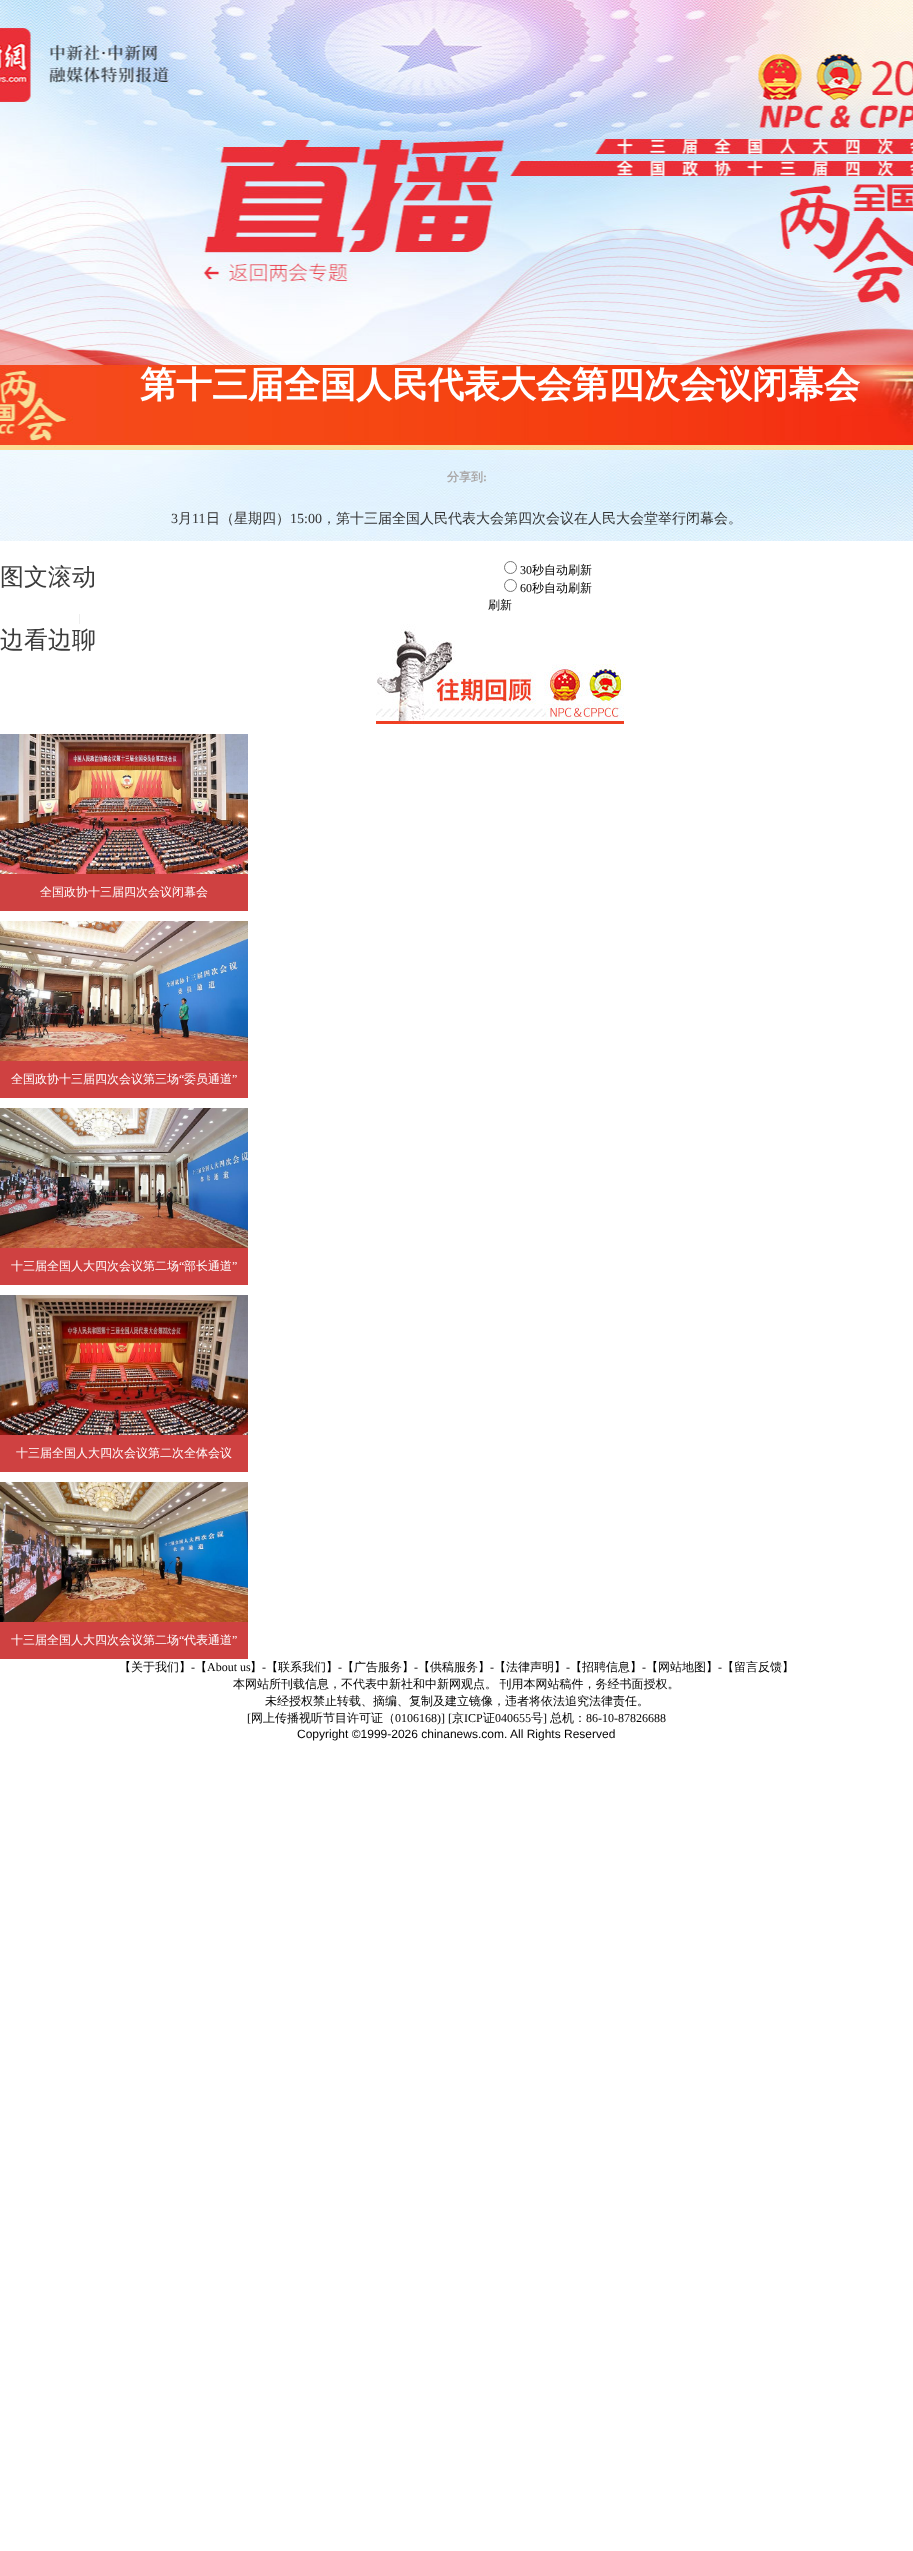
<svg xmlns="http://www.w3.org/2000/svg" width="913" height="2551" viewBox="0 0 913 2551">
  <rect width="100%" height="100%" fill="rgb(255,255,255)"/>
  <image x="0" y="0" width="913" height="541" href="pic1.png"/>
  <text x="140" y="397" font-family="WenQuanYi Zen Hei" font-size="36" font-weight="bold" fill="rgb(255,255,255)">第十三届全国人民代表大会第四次会议闭幕会</text>
  <text x="447" y="481" font-family="WenQuanYi Zen Hei" font-size="12" font-weight="bold" fill="rgb(170,167,167)">分享到</text>
  <text x="483" y="481" font-family="Liberation Serif" font-size="12" font-weight="bold" fill="rgb(170,167,167)">:</text>
  <text x="171" y="523" font-family="Liberation Serif" font-size="14" fill="rgb(51,51,51)">3</text>
  <text x="178" y="523" font-family="WenQuanYi Zen Hei" font-size="14" font-weight="500" fill="rgb(51,51,51)">月</text>
  <text x="192" y="523" font-family="Liberation Serif" font-size="14" fill="rgb(51,51,51)">11</text>
  <text x="206" y="523" font-family="WenQuanYi Zen Hei" font-size="14" font-weight="500" fill="rgb(51,51,51)">日（星期四）</text>
  <text x="290" y="523" font-family="Liberation Serif" font-size="14" fill="rgb(51,51,51)">15:00</text>
  <text x="322" y="523" font-family="WenQuanYi Zen Hei" font-size="14" font-weight="500" fill="rgb(51,51,51)">，第十三届全国人民代表大会第四次会议在人民大会堂举行闭幕会。</text>
  <text x="0" y="585" font-family="WenQuanYi Zen Hei" font-size="24" font-weight="500" fill="rgb(59,59,59)">图文滚动</text>
  <circle cx="510.5" cy="567.5" r="6" fill="none" stroke="rgb(118,118,118)"/>
  <text x="520" y="574" font-family="Liberation Serif" font-size="12" fill="rgb(0,0,0)">30</text>
  <text x="532" y="574" font-family="WenQuanYi Zen Hei" font-size="12" font-weight="500" fill="rgb(0,0,0)">秒自动刷新</text>
  <circle cx="510.5" cy="585.5" r="6" fill="none" stroke="rgb(118,118,118)"/>
  <text x="520" y="592" font-family="Liberation Serif" font-size="12" fill="rgb(0,0,0)">60</text>
  <g font-family="WenQuanYi Zen Hei" font-size="12" font-weight="500" fill="rgb(0,0,0)">
    <text x="532" y="592">秒自动刷新</text>
    <text x="488" y="609">刷新</text>
  </g>
  <rect x="79" y="614" width="1" height="10" fill="rgb(238,238,238)"/>
  <text x="0" y="648" font-family="WenQuanYi Zen Hei" font-size="24" font-weight="500" fill="rgb(59,59,59)">边看边聊</text>
  <image x="376" y="624" width="248" height="100" href="pic2.png"/>
  <image x="0" y="734" width="248" height="140" href="pic3.png"/>
  <rect x="0" y="874" width="248" height="37" fill="rgb(207,65,65)"/>
  <text x="40" y="896" font-family="WenQuanYi Zen Hei" font-size="12" font-weight="500" fill="rgb(255,255,255)">全国政协十三届四次会议闭幕会</text>
  <image x="0" y="921" width="248" height="140" href="pic4.png"/>
  <rect x="0" y="1061" width="248" height="37" fill="rgb(207,65,65)"/>
  <text x="11" y="1083" font-family="WenQuanYi Zen Hei" font-size="12" font-weight="500" fill="rgb(255,255,255)">全国政协十三届四次会议第三场</text>
  <text x="179" y="1083" font-family="Liberation Serif" font-size="12" fill="rgb(255,255,255)">“</text>
  <text x="184" y="1083" font-family="WenQuanYi Zen Hei" font-size="12" font-weight="500" fill="rgb(255,255,255)">委员通道</text>
  <text x="232" y="1083" font-family="Liberation Serif" font-size="12" fill="rgb(255,255,255)">”</text>
  <image x="0" y="1108" width="248" height="140" href="pic5.png"/>
  <rect x="0" y="1248" width="248" height="37" fill="rgb(207,65,65)"/>
  <text x="11" y="1270" font-family="WenQuanYi Zen Hei" font-size="12" font-weight="500" fill="rgb(255,255,255)">十三届全国人大四次会议第二场</text>
  <text x="179" y="1270" font-family="Liberation Serif" font-size="12" fill="rgb(255,255,255)">“</text>
  <text x="184" y="1270" font-family="WenQuanYi Zen Hei" font-size="12" font-weight="500" fill="rgb(255,255,255)">部长通道</text>
  <text x="232" y="1270" font-family="Liberation Serif" font-size="12" fill="rgb(255,255,255)">”</text>
  <image x="0" y="1295" width="248" height="140" href="pic6.png"/>
  <rect x="0" y="1435" width="248" height="37" fill="rgb(207,65,65)"/>
  <text x="16" y="1457" font-family="WenQuanYi Zen Hei" font-size="12" font-weight="500" fill="rgb(255,255,255)">十三届全国人大四次会议第二次全体会议</text>
  <image x="0" y="1482" width="248" height="140" href="pic7.png"/>
  <rect x="0" y="1622" width="248" height="37" fill="rgb(207,65,65)"/>
  <text x="11" y="1644" font-family="WenQuanYi Zen Hei" font-size="12" font-weight="500" fill="rgb(255,255,255)">十三届全国人大四次会议第二场</text>
  <text x="179" y="1644" font-family="Liberation Serif" font-size="12" fill="rgb(255,255,255)">“</text>
  <text x="184" y="1644" font-family="WenQuanYi Zen Hei" font-size="12" font-weight="500" fill="rgb(255,255,255)">代表通道</text>
  <text x="232" y="1644" font-family="Liberation Serif" font-size="12" fill="rgb(255,255,255)">”</text>
  <text x="119" y="1671" font-family="WenQuanYi Zen Hei" font-size="12" font-weight="500" fill="rgb(0,0,0)">【关于我们】</text>
  <text x="191" y="1671" font-family="Liberation Serif" font-size="12" fill="rgb(0,0,0)">-</text>
  <text x="195" y="1671" font-family="WenQuanYi Zen Hei" font-size="12" font-weight="500" fill="rgb(0,0,0)">【</text>
  <text x="207" y="1671" font-family="Liberation Serif" font-size="12" fill="rgb(0,0,0)">About us</text>
  <text x="250" y="1671" font-family="WenQuanYi Zen Hei" font-size="12" font-weight="500" fill="rgb(0,0,0)">】</text>
  <text x="262" y="1671" font-family="Liberation Serif" font-size="12" fill="rgb(0,0,0)">-</text>
  <text x="266" y="1671" font-family="WenQuanYi Zen Hei" font-size="12" font-weight="500" fill="rgb(0,0,0)">【联系我们】</text>
  <text x="338" y="1671" font-family="Liberation Serif" font-size="12" fill="rgb(0,0,0)">-</text>
  <text x="342" y="1671" font-family="WenQuanYi Zen Hei" font-size="12" font-weight="500" fill="rgb(0,0,0)">【广告服务】</text>
  <text x="414" y="1671" font-family="Liberation Serif" font-size="12" fill="rgb(0,0,0)">-</text>
  <text x="418" y="1671" font-family="WenQuanYi Zen Hei" font-size="12" font-weight="500" fill="rgb(0,0,0)">【供稿服务】</text>
  <text x="490" y="1671" font-family="Liberation Serif" font-size="12" fill="rgb(0,0,0)">-</text>
  <text x="494" y="1671" font-family="WenQuanYi Zen Hei" font-size="12" font-weight="500" fill="rgb(0,0,0)">【法律声明】</text>
  <text x="566" y="1671" font-family="Liberation Serif" font-size="12" fill="rgb(0,0,0)">-</text>
  <text x="570" y="1671" font-family="WenQuanYi Zen Hei" font-size="12" font-weight="500" fill="rgb(0,0,0)">【招聘信息】</text>
  <text x="642" y="1671" font-family="Liberation Serif" font-size="12" fill="rgb(0,0,0)">-</text>
  <text x="646" y="1671" font-family="WenQuanYi Zen Hei" font-size="12" font-weight="500" fill="rgb(0,0,0)">【网站地图】</text>
  <text x="718" y="1671" font-family="Liberation Serif" font-size="12" fill="rgb(0,0,0)">-</text>
  <g font-family="WenQuanYi Zen Hei" font-size="12" font-weight="500" fill="rgb(0,0,0)">
    <text x="722" y="1671">【留言反馈】</text>
    <text x="233" y="1688" word-spacing="-1">本网站所刊载信息，不代表中新社和中新网观点。 刊用本网站稿件，务经书面授权。</text>
    <text x="265" y="1705">未经授权禁止转载、摘编、复制及建立镜像，违者将依法追究法律责任。</text>
  </g>
  <text x="247" y="1722" font-family="Liberation Serif" font-size="12" fill="rgb(0,0,0)">[</text>
  <text x="251" y="1722" font-family="WenQuanYi Zen Hei" font-size="12" font-weight="500" fill="rgb(0,0,0)">网上传播视听节目许可证（</text>
  <text x="395" y="1722" font-family="Liberation Serif" font-size="12" fill="rgb(0,0,0)">0106168)] [</text>
  <text x="452" y="1722" font-family="WenQuanYi Zen Hei" font-size="12" font-weight="500" fill="rgb(0,0,0)">京</text>
  <text x="464" y="1722" font-family="Liberation Serif" font-size="12" fill="rgb(0,0,0)">ICP</text>
  <text x="483" y="1722" font-family="WenQuanYi Zen Hei" font-size="12" font-weight="500" fill="rgb(0,0,0)">证</text>
  <text x="495" y="1722" font-family="Liberation Serif" font-size="12" fill="rgb(0,0,0)">040655</text>
  <text x="531" y="1722" font-family="WenQuanYi Zen Hei" font-size="12" font-weight="500" fill="rgb(0,0,0)">号</text>
  <text x="543" y="1722" font-family="Liberation Serif" font-size="12" fill="rgb(0,0,0)">]</text>
  <text x="550" y="1722" font-family="WenQuanYi Zen Hei" font-size="12" font-weight="500" fill="rgb(0,0,0)">总机：</text>
  <text x="586" y="1722" font-family="Liberation Serif" font-size="12" fill="rgb(0,0,0)">86-10-87826688</text>
  <text x="297" y="1738" font-family="Liberation Sans" font-size="12" fill="rgb(0,0,0)">Copyright ©1999-2026 chinanews.com. All Rights Reserved</text>
</svg>
